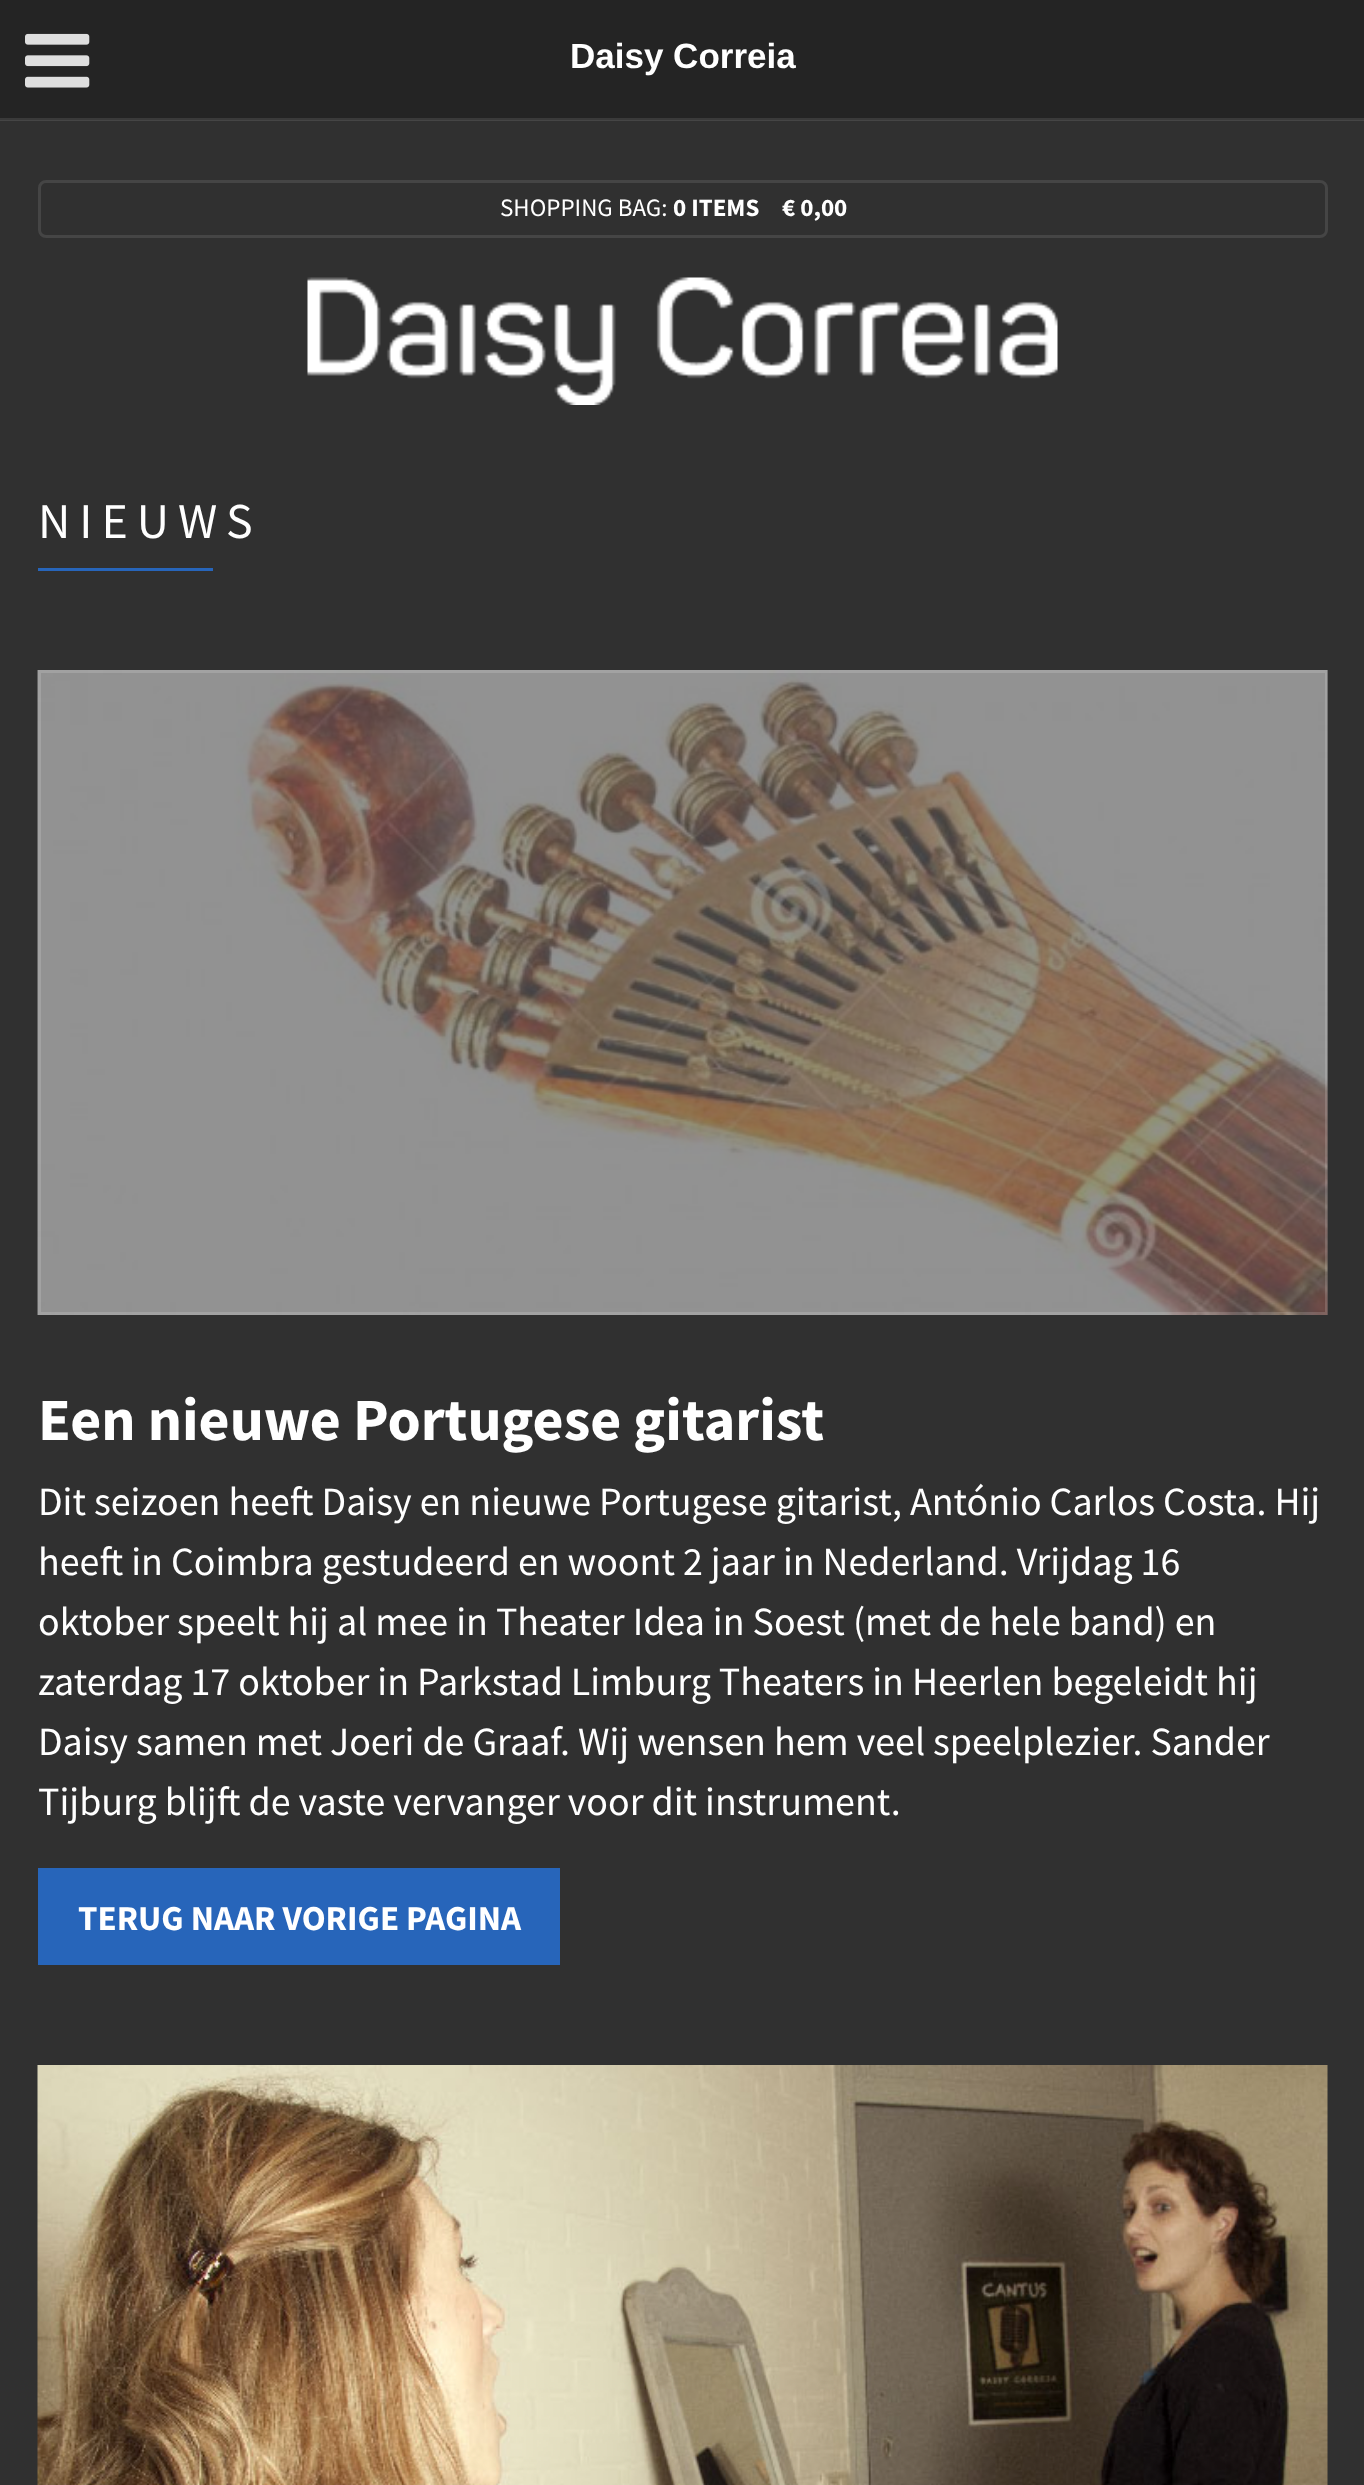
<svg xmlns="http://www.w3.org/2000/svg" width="1364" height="2485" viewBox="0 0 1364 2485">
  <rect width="100%" height="100%" fill="rgb(48,48,48)"/>
  <rect x="0" y="120" width="1364" height="1" fill="rgb(69,69,69)"/>
  <rect x="0" y="0" width="1364" height="118" fill="rgb(36,36,36)"/>
  <rect x="0" y="118" width="1364" height="2" fill="rgb(58,58,58)"/>
  <image x="25" y="33" width="65" height="55" href="pic1.png"/>
  <text x="570" y="68" font-family="Liberation Sans" font-size="35" font-weight="bold" fill="rgb(255,255,255)">Daisy Correia</text>
  <rect x="39.5" y="181.5" width="1287" height="55" rx="6.5" fill="none" stroke="rgb(69,69,69)" stroke-width="3"/>
  <text x="500" y="216" font-family="Source Sans Pro" font-size="25" fill="rgb(255,255,255)">SHOPPING BAG:</text>
  <g font-family="Source Sans Pro" font-size="25" font-weight="bold" fill="rgb(255,255,255)">
    <text x="673" y="216">0 ITEMS</text>
    <text x="782" y="216">€ 0,00</text>
  </g>
  <image x="307" y="277" width="751" height="128" href="pic2.png"/>
  <text x="38" y="538" font-family="Source Sans Pro" font-size="50" letter-spacing="9" fill="rgb(255,255,255)">NIEUWS</text>
  <rect x="38" y="568" width="175" height="3" fill="rgb(39,101,186)"/>
  <rect x="38" y="670" width="1290" height="645" fill="rgb(36,36,36)"/>
  <image x="37" y="670" width="1291" height="645" href="pic3.png"/>
  <rect x="39.5" y="671.5" width="1287" height="642" fill="none" stroke="rgba(255,255,255,0.15)" stroke-width="3"/>
  <text x="38" y="1440" font-family="Source Sans Pro" font-size="60" font-weight="bold" fill="rgb(255,255,255)">Een nieuwe Portugese gitarist</text>
  <g font-family="Source Sans Pro" font-size="40" fill="rgb(255,255,255)">
    <text>
      <tspan x="38" y="1515">Dit seizoen heeft Daisy en nieuwe Portugese gitarist, António Carlos Costa. Hij</tspan>
      <tspan x="38" y="1575">heeft in Coimbra gestudeerd en woont 2 jaar in Nederland. Vrijdag 16</tspan>
      <tspan x="38" y="1635">oktober speelt hij al mee in Theater Idea in Soest (met de hele band) en</tspan>
      <tspan x="38" y="1695">zaterdag 17 oktober in Parkstad Limburg Theaters in Heerlen begeleidt hij</tspan>
      <tspan x="38" y="1755">Daisy samen met Joeri de Graaf. Wij wensen hem veel speelplezier. Sander</tspan>
      <tspan x="38" y="1815">Tijburg blijft de vaste vervanger voor dit instrument.</tspan>
    </text>
  </g>
  <rect x="38" y="1868" width="522" height="97" fill="rgb(39,101,186)"/>
  <text x="78" y="1930" font-family="Source Sans Pro" font-size="35" font-weight="bold" fill="rgb(255,255,255)">TERUG NAAR VORIGE PAGINA</text>
  <image x="37" y="2065" width="1291" height="420" href="pic4.png"/>
</svg>
